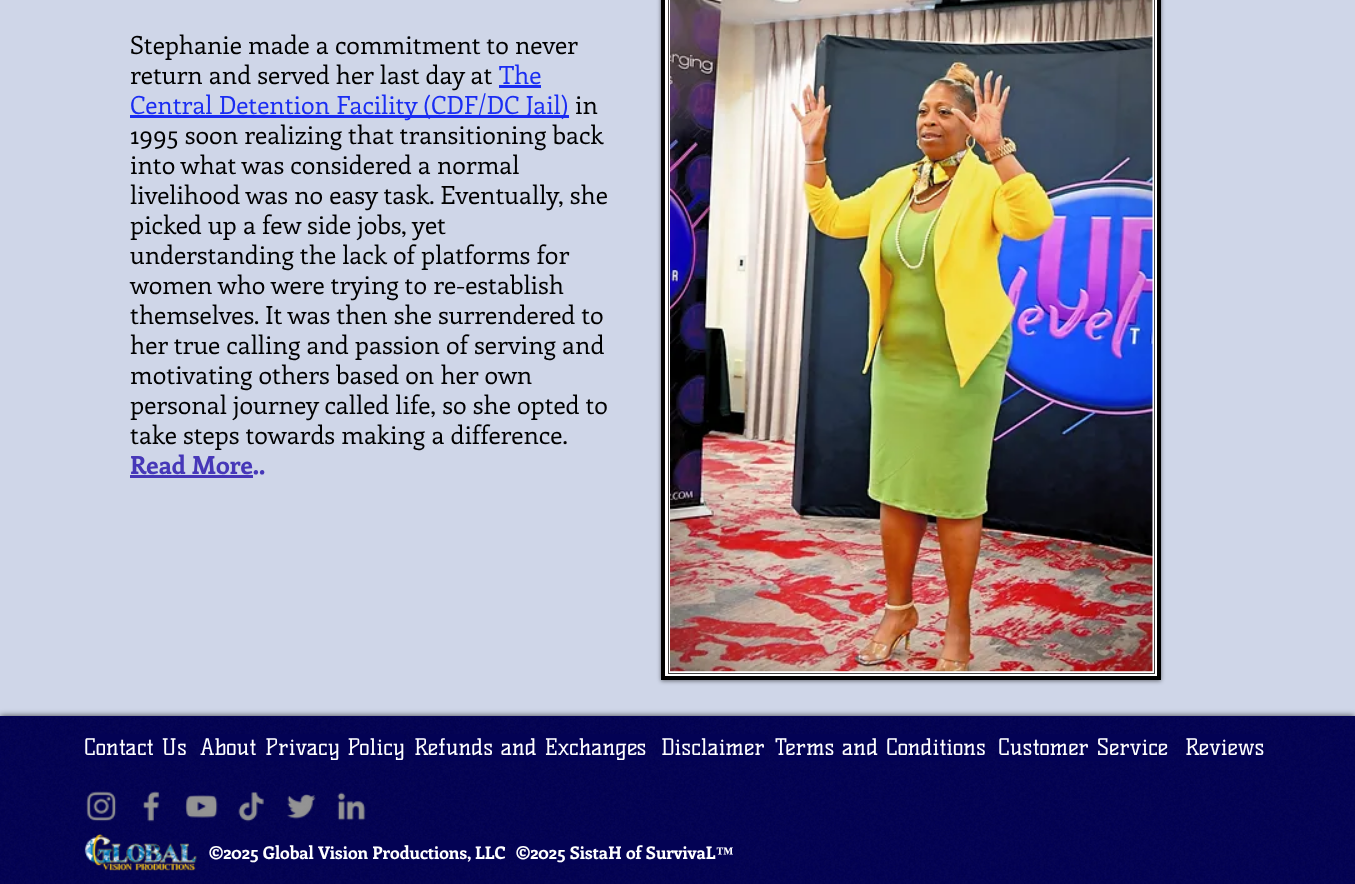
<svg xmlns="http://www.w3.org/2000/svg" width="1355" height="884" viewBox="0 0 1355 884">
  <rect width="100%" height="100%" fill="rgb(207,214,232)"/>
  <g font-family="Enriqueta" font-size="25" fill="rgb(0,0,0)">
    <text>
      <tspan x="130" y="54">Stephanie made a commitment to never</tspan>
      <tspan x="130" y="84">return and served her last day at</tspan>
    </text>
  </g>
  <rect x="499" y="85" width="42" height="3" fill="rgb(26,45,243)"/>
  <text x="499" y="84" font-family="Enriqueta" font-size="25" fill="rgb(26,45,243)">The</text>
  <rect x="130" y="115" width="439" height="3" fill="rgb(26,45,243)"/>
  <text x="130" y="114" font-family="Enriqueta" font-size="25" fill="rgb(26,45,243)">Central Detention Facility (CDF/DC Jail)</text>
  <g font-family="Enriqueta" font-size="25" fill="rgb(0,0,0)">
    <text x="575" y="114">in</text>
    <text>
      <tspan x="130" y="144">1995 soon realizing that transitioning back</tspan>
      <tspan x="130" y="174">into what was considered a normal</tspan>
      <tspan x="130" y="204">livelihood was no easy task. Eventually, she</tspan>
      <tspan x="130" y="234">picked up a few side jobs, yet</tspan>
      <tspan x="130" y="264">understanding the lack of platforms for</tspan>
      <tspan x="130" y="294">women who were trying to re-establish</tspan>
      <tspan x="130" y="324">themselves. It was then she surrendered to</tspan>
      <tspan x="130" y="354">her true calling and passion of serving and</tspan>
      <tspan x="130" y="384">motivating others based on her own</tspan>
      <tspan x="130" y="414">personal journey called life, so she opted to</tspan>
      <tspan x="130" y="444">take steps towards making a difference.</tspan>
    </text>
  </g>
  <text x="130" y="474" font-family="Enriqueta" font-size="25" font-weight="bold" fill="rgb(70,55,184)">Read More..</text>
  <rect x="130" y="475" width="123" height="3" fill="rgb(70,55,184)"/>
  <rect x="661" y="-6" width="500" height="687" fill="rgba(0,0,0,0.5)" filter="blur(2px)"/>
  <rect x="663" y="-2" width="496" height="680" fill="rgb(255,255,255)" stroke="rgb(0,0,0)" stroke-width="4"/>
  <image x="670" y="0" width="483" height="672" href="pic1.png"/>
  <rect x="668.5" y="-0.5" width="486" height="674" fill="none" stroke="rgb(64,64,64)"/>
  <rect x="0" y="716" width="1355" height="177" fill="rgba(0,0,0,0.7)" filter="blur(3px)"/>
  <rect x="0" y="716" width="1355" height="168" fill="rgb(3,2,84)"/>
  <image x="0" y="717" width="1355" height="167" href="pic2.png"/>
  <rect x="84" y="734" width="102" height="27" fill="rgb(3,2,84)"/>
  <text x="84" y="755" font-family="Kelly Slab" font-size="22.5" fill="rgb(255,255,255)">Contact Us</text>
  <rect x="200" y="734" width="56" height="27" fill="rgb(3,2,84)"/>
  <text x="200" y="755" font-family="Kelly Slab" font-size="22.5" fill="rgb(255,255,255)">About</text>
  <rect x="265" y="734" width="139" height="27" fill="rgb(3,2,84)"/>
  <text x="265" y="755" font-family="Kelly Slab" font-size="22.5" fill="rgb(255,255,255)">Privacy Policy</text>
  <rect x="414" y="734" width="232" height="27" fill="rgb(3,2,84)"/>
  <text x="414" y="755" font-family="Kelly Slab" font-size="22.5" fill="rgb(255,255,255)">Refunds and Exchanges</text>
  <rect x="661" y="734" width="104" height="27" fill="rgb(3,2,84)"/>
  <text x="661" y="755" font-family="Kelly Slab" font-size="22.5" fill="rgb(255,255,255)">Disclaimer</text>
  <rect x="775" y="734" width="211" height="27" fill="rgb(3,2,84)"/>
  <text x="775" y="755" font-family="Kelly Slab" font-size="22.5" fill="rgb(255,255,255)">Terms and Conditions</text>
  <rect x="998" y="734" width="170" height="27" fill="rgb(3,2,84)"/>
  <text x="998" y="755" font-family="Kelly Slab" font-size="22.5" fill="rgb(255,255,255)">Customer Service</text>
  <rect x="1185" y="734" width="80" height="27" fill="rgb(3,2,84)"/>
  <text x="1185" y="755" font-family="Kelly Slab" font-size="22.5" fill="rgb(255,255,255)">Reviews</text>
  <image x="86" y="791" width="31" height="31" href="pic3.png"/>
  <image x="143" y="791" width="16" height="31" href="pic4.png"/>
  <image x="185" y="795" width="33" height="23" href="pic5.png"/>
  <image x="238" y="792" width="26" height="30" href="pic6.png"/>
  <image x="287" y="794" width="29" height="25" href="pic7.png"/>
  <image x="337" y="792" width="29" height="29" href="pic8.png"/>
  <image x="84" y="834" width="113" height="37" href="pic9.png"/>
  <rect x="209" y="840" width="296" height="24" fill="rgb(3,2,84)"/>
  <text x="209" y="859" font-family="Enriqueta" font-size="17.5" font-weight="bold" fill="rgb(255,255,255)">©2025 Global Vision Productions, LLC</text>
  <rect x="516" y="840" width="218" height="24" fill="rgb(3,2,84)"/>
  <text x="516" y="859" font-family="Enriqueta" font-size="17.5" font-weight="bold" fill="rgb(255,255,255)">©2025 SistaH of SurvivaL</text>
  <text x="716" y="859" font-family="Liberation Serif" font-size="17.5" font-weight="bold" fill="rgb(255,255,255)">™</text>
</svg>
